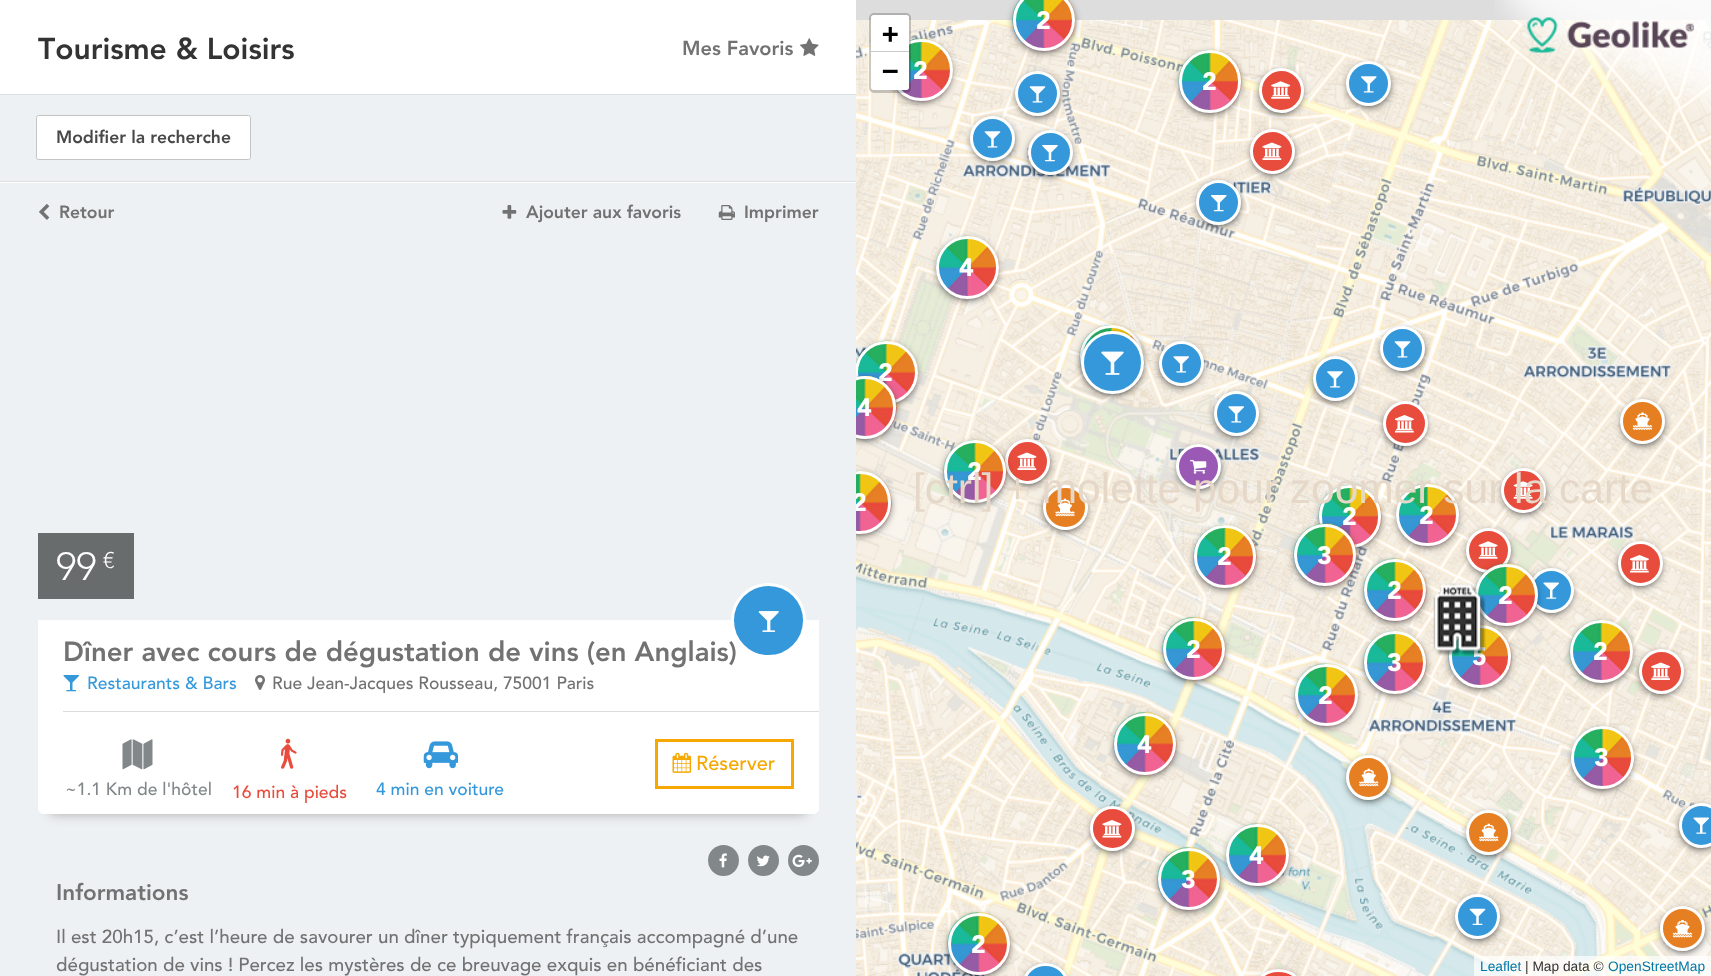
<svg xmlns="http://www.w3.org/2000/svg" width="1711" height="976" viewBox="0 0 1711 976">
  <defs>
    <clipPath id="clip1"><path d="M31 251H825V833H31ZM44 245H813C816.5 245 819 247.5 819 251V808C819 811.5 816.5 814 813 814H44C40.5 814 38 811.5 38 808V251C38 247.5 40.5 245 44 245Z" clip-rule="evenodd"/></clipPath>
    <clipPath id="clip2"><rect x="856" y="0" width="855" height="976"/></clipPath>
    <clipPath id="clip3"><rect x="856" y="0" width="855" height="976"/></clipPath>
  </defs>
  <rect width="100%" height="100%" fill="rgb(238,241,243)"/>
  <rect x="0" y="0" width="856" height="183" fill="rgb(255,255,255)"/>
  <rect x="0" y="181" width="856" height="1" fill="rgb(220,224,224)"/>
  <text x="38" y="59" font-family="'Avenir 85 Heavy'" font-size="30" font-weight="900" fill="rgb(51,51,51)">Tourisme &amp; Loisirs</text>
  <text x="682" y="55" font-family="'Avenir 85 Heavy'" font-size="20" font-weight="900" fill="rgb(114,114,114)">Mes Favoris</text>
  <image x="800" y="38" width="19" height="18" href="pic1.png"/>
  <rect x="0" y="95" width="856" height="86" fill="rgb(238,241,243)"/>
  <rect x="0" y="94" width="856" height="1" fill="rgb(220,224,224)"/>
  <rect x="36.5" y="115.5" width="214" height="44" rx="2" fill="rgb(255,255,255)" stroke="rgb(196,196,196)"/>
  <text x="56" y="143" font-family="'Avenir 85 Heavy'" font-size="17.5" font-weight="900" fill="rgb(72,72,72)">Modifier la recherche</text>
  <image x="39" y="204" width="11" height="16" href="pic2.png"/>
  <text x="59" y="218" font-family="'Avenir 85 Heavy'" font-size="17.5" font-weight="900" fill="rgb(114,114,114)">Retour</text>
  <image x="502" y="205" width="15" height="14" href="pic3.png"/>
  <text x="526" y="218" font-family="'Avenir 85 Heavy'" font-size="17.5" font-weight="900" fill="rgb(114,114,114)">Ajouter aux favoris</text>
  <image x="718" y="205" width="17" height="15" href="pic4.png"/>
  <text x="744" y="218" font-family="'Avenir 85 Heavy'" font-size="17.5" font-weight="900" fill="rgb(114,114,114)">Imprimer</text>
  <g clip-path="url(#clip1)">
    <rect x="50" y="270" width="756" height="544" fill="rgb(170,170,170)" filter="blur(6px)"/>
  </g>
  <rect x="38" y="533" width="96" height="66" fill="rgb(105,108,109)"/>
  <text x="56" y="580" font-family="Avenir" font-size="39" font-weight="300" fill="rgb(255,255,255)">99</text>
  <text x="103" y="568" font-family="Avenir" font-size="22.5" font-weight="300" fill="rgb(255,255,255)">€</text>
  <path d="M38 620H819V808C819 811.5 816.5 814 813 814H44C40.5 814 38 811.5 38 808Z" fill="rgb(255,255,255)"/>
  <text x="63" y="661" font-family="'Avenir 85 Heavy'" font-size="27.5" font-weight="900" fill="rgb(114,114,114)">Dîner avec cours de dégustation de vins (en Anglais)</text>
  <circle cx="768.5" cy="620.5" r="36" fill="rgb(52,152,219)" stroke="rgb(255,255,255)" stroke-width="3"/>
  <image x="758" y="611" width="21" height="21" href="pic5.png"/>
  <image x="63" y="675" width="17" height="17" href="pic6.png"/>
  <text x="87" y="689" font-family="'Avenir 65'" font-size="17.5" font-weight="500" fill="rgb(52,152,219)">Restaurants &amp; Bars</text>
  <image x="255" y="675" width="10" height="15" href="pic7.png"/>
  <text x="272" y="689" font-family="'Avenir 65'" font-size="17.5" font-weight="500" fill="rgb(114,114,114)">Rue Jean-Jacques Rousseau, 75001 Paris</text>
  <rect x="63" y="711" width="756" height="1" fill="rgb(219,219,219)"/>
  <rect x="656.5" y="740.5" width="136" height="47" fill="none" stroke="rgb(246,168,0)" stroke-width="3"/>
  <image x="672" y="752" width="20" height="21" href="pic8.png"/>
  <text x="696" y="770" font-family="'Avenir 65'" font-size="20" font-weight="500" fill="rgb(246,168,0)">Réserver</text>
  <image x="122" y="739" width="31" height="31" href="pic9.png"/>
  <text x="65" y="795" font-family="'Avenir 65'" font-size="17.5" font-weight="500" fill="rgb(130,136,138)">~1.1 Km de l'hôtel</text>
  <image x="280" y="738" width="17" height="31" href="pic10.png"/>
  <text x="232" y="798" font-family="'Avenir 65'" font-size="17.5" font-weight="500" fill="rgb(231,76,60)">16 min à pieds</text>
  <image x="423" y="741" width="36" height="28" href="pic11.png"/>
  <text x="376" y="795" font-family="'Avenir 65'" font-size="17.5" font-weight="500" fill="rgb(52,152,219)">4 min en voiture</text>
  <circle cx="723.5" cy="860.5" r="15.5" fill="rgb(130,136,138)"/>
  <image x="719" y="853" width="8" height="15" href="pic12.png"/>
  <circle cx="763.5" cy="860.5" r="15.5" fill="rgb(130,136,138)"/>
  <image x="757" y="855" width="13" height="12" href="pic13.png"/>
  <circle cx="803.5" cy="860.5" r="15.5" fill="rgb(130,136,138)"/>
  <image x="792" y="854" width="20" height="13" href="pic14.png"/>
  <text x="56" y="900" font-family="'Avenir 85 Heavy'" font-size="22.5" font-weight="900" fill="rgb(114,114,114)">Informations</text>
  <g font-family="'Avenir 65'" font-size="18.75" font-weight="500" fill="rgb(114,114,114)">
    <text>
      <tspan x="56" y="943">Il est 20h15, c’est l’heure de savourer un dîner typiquement français accompagné d’une</tspan>
      <tspan x="56" y="971">dégustation de vins ! Percez les mystères de ce breuvage exquis en bénéficiant des</tspan>
    </text>
  </g>
  <rect x="856" y="0" width="855" height="976" fill="rgb(221,221,221)"/>
  <image x="1310" y="20" width="320" height="320" href="pic64.png"/>
  <image x="1629" y="20" width="82" height="320" href="pic65.png"/>
  <image x="1494" y="0" width="217" height="116" href="pic15.png"/>
  <image x="990" y="20" width="320" height="320" href="pic63.png"/>
  <rect x="1015" y="-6" width="58" height="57" rx="28.5" fill="rgb(29,29,28)" filter="blur(4px)"/>
  <image x="1012" y="0" width="63" height="52" href="pic16.png"/>
  <circle cx="1044" cy="20" r="29.5" fill="none" stroke="rgb(255,255,255)" stroke-width="3"/>
  <text x="1036" y="29" font-family="'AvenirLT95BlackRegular'" font-size="25" font-weight="900" fill="rgb(255,255,255)">2</text>
  <image x="856" y="20" width="134" height="320" href="pic62.png"/>
  <rect x="893" y="44" width="57" height="57" rx="28.5" fill="rgb(29,29,28)" filter="blur(4px)"/>
  <image x="896" y="38" width="57" height="64" href="pic17.png"/>
  <rect x="891.5" y="40.5" width="60" height="59" rx="29.5" fill="none" stroke="rgb(255,255,255)" stroke-width="3"/>
  <text x="913" y="79" font-family="'AvenirLT95BlackRegular'" font-size="25" font-weight="900" fill="rgb(255,255,255)">2</text>
  <rect x="1018" y="76" width="40" height="40" rx="20" fill="rgb(29,29,28)" filter="blur(4px)"/>
  <circle cx="1037.5" cy="93.5" r="21" fill="rgb(52,152,219)" stroke="rgb(255,255,255)" stroke-width="3"/>
  <image x="1029" y="86" width="17" height="17" href="pic18.png"/>
  <rect x="1181" y="55" width="58" height="58" rx="29" fill="rgb(29,29,28)" filter="blur(4px)"/>
  <image x="1178" y="50" width="64" height="63" href="pic19.png"/>
  <rect x="1180.5" y="51.5" width="59" height="60" rx="29.5" fill="none" stroke="rgb(255,255,255)" stroke-width="3"/>
  <text x="1202" y="90" font-family="'AvenirLT95BlackRegular'" font-size="25" font-weight="900" fill="rgb(255,255,255)">2</text>
  <rect x="1261" y="73" width="40" height="40" rx="20" fill="rgb(29,29,28)" filter="blur(4px)"/>
  <circle cx="1281.5" cy="90.5" r="21" fill="rgb(231,76,60)" stroke="rgb(255,255,255)" stroke-width="3"/>
  <image x="1271" y="81" width="19" height="18" href="pic20.png"/>
  <rect x="1349" y="66" width="40" height="40" rx="20" fill="rgb(29,29,28)" filter="blur(4px)"/>
  <circle cx="1368.5" cy="83.5" r="21" fill="rgb(52,152,219)" stroke="rgb(255,255,255)" stroke-width="3"/>
  <image x="1361" y="76" width="16" height="17" href="pic21.png"/>
  <rect x="973" y="121" width="40" height="40" rx="20" fill="rgb(29,29,28)" filter="blur(4px)"/>
  <circle cx="992.5" cy="138.5" r="21" fill="rgb(52,152,219)" stroke="rgb(255,255,255)" stroke-width="3"/>
  <image x="984" y="131" width="17" height="17" href="pic18.png"/>
  <rect x="1030" y="135" width="40" height="40" rx="20" fill="rgb(29,29,28)" filter="blur(4px)"/>
  <circle cx="1050.5" cy="152.5" r="21" fill="rgb(52,152,219)" stroke="rgb(255,255,255)" stroke-width="3"/>
  <image x="1042" y="145" width="16" height="17" href="pic22.png"/>
  <rect x="1253" y="134" width="40" height="40" rx="20" fill="rgb(29,29,28)" filter="blur(4px)"/>
  <circle cx="1272.5" cy="151.5" r="21" fill="rgb(231,76,60)" stroke="rgb(255,255,255)" stroke-width="3"/>
  <image x="1262" y="142" width="20" height="18" href="pic23.png"/>
  <rect x="1199" y="185" width="40" height="40" rx="20" fill="rgb(29,29,28)" filter="blur(4px)"/>
  <circle cx="1218.5" cy="202.5" r="21" fill="rgb(52,152,219)" stroke="rgb(255,255,255)" stroke-width="3"/>
  <image x="1210" y="195" width="17" height="17" href="pic24.png"/>
  <rect x="939" y="241" width="57" height="58" rx="28.5" fill="rgb(29,29,28)" filter="blur(4px)"/>
  <image x="936" y="236" width="63" height="63" href="pic25.png"/>
  <circle cx="967.5" cy="267.5" r="30" fill="none" stroke="rgb(255,255,255)" stroke-width="3"/>
  <text x="959" y="276" font-family="'AvenirLT95BlackRegular'" font-size="25" font-weight="900" fill="rgb(255,255,255)">4</text>
  <image x="990" y="340" width="320" height="320" href="pic67.png"/>
  <rect x="1083" y="330" width="57" height="58" rx="28.5" fill="rgb(29,29,28)" filter="blur(4px)"/>
  <image x="1079" y="325" width="64" height="46" href="pic26.png"/>
  <circle cx="1111.5" cy="356.5" r="30" fill="none" stroke="rgb(255,255,255)" stroke-width="3"/>
  <image x="1310" y="340" width="320" height="320" href="pic68.png"/>
  <rect x="1383" y="331" width="40" height="40" rx="20" fill="rgb(29,29,28)" filter="blur(4px)"/>
  <circle cx="1402.5" cy="348.5" r="21" fill="rgb(52,152,219)" stroke="rgb(255,255,255)" stroke-width="3"/>
  <image x="1394" y="341" width="17" height="17" href="pic18.png"/>
  <image x="856" y="340" width="134" height="320" href="pic66.png"/>
  <g clip-path="url(#clip2)">
    <rect x="858" y="346" width="57" height="58" rx="28.5" fill="rgb(29,29,28)" filter="blur(4px)"/>
  </g>
  <image x="856" y="341" width="62" height="62" href="pic27.png"/>
  <g clip-path="url(#clip3)">
    <circle cx="886.5" cy="372.5" r="30" fill="none" stroke="rgb(255,255,255)" stroke-width="3"/>
  </g>
  <text x="878" y="381" font-family="'AvenirLT95BlackRegular'" font-size="25" font-weight="900" fill="rgb(255,255,255)">2</text>
  <rect x="1084" y="336" width="57" height="58" rx="28.5" fill="rgb(29,29,28)" filter="blur(4px)"/>
  <circle cx="1112.5" cy="362.5" r="30" fill="rgb(52,152,219)" stroke="rgb(255,255,255)" stroke-width="3"/>
  <image x="1101" y="351" width="23" height="24" href="pic28.png"/>
  <rect x="1161" y="346" width="40" height="40" rx="20" fill="rgb(29,29,28)" filter="blur(4px)"/>
  <circle cx="1181.5" cy="363.5" r="21" fill="rgb(52,152,219)" stroke="rgb(255,255,255)" stroke-width="3"/>
  <image x="1173" y="356" width="16" height="17" href="pic29.png"/>
  <rect x="1315" y="361" width="40" height="40" rx="20" fill="rgb(29,29,28)" filter="blur(4px)"/>
  <circle cx="1335.5" cy="378.5" r="21" fill="rgb(52,152,219)" stroke="rgb(255,255,255)" stroke-width="3"/>
  <image x="1327" y="371" width="16" height="17" href="pic30.png"/>
  <g clip-path="url(#clip2)">
    <rect x="836" y="381" width="58" height="58" rx="29" fill="rgb(29,29,28)" filter="blur(4px)"/>
  </g>
  <image x="856" y="376" width="41" height="63" href="pic31.png"/>
  <g clip-path="url(#clip3)">
    <rect x="835.5" y="377.5" width="59" height="60" rx="29.5" fill="none" stroke="rgb(255,255,255)" stroke-width="3"/>
  </g>
  <text x="857" y="416" font-family="'AvenirLT95BlackRegular'" font-size="25" font-weight="900" fill="rgb(255,255,255)">4</text>
  <rect x="1216" y="396" width="40" height="40" rx="20" fill="rgb(29,29,28)" filter="blur(4px)"/>
  <circle cx="1236.5" cy="413.5" r="21" fill="rgb(52,152,219)" stroke="rgb(255,255,255)" stroke-width="3"/>
  <image x="1228" y="406" width="16" height="17" href="pic29.png"/>
  <rect x="1385" y="406" width="40" height="40" rx="20" fill="rgb(29,29,28)" filter="blur(4px)"/>
  <circle cx="1405.5" cy="423.5" r="21" fill="rgb(231,76,60)" stroke="rgb(255,255,255)" stroke-width="3"/>
  <image x="1395" y="415" width="19" height="18" href="pic32.png"/>
  <image x="1629" y="340" width="82" height="320" href="pic69.png"/>
  <rect x="1623" y="404" width="40" height="40" rx="20" fill="rgb(29,29,28)" filter="blur(4px)"/>
  <circle cx="1642.5" cy="421.5" r="21" fill="rgb(230,126,34)" stroke="rgb(255,255,255)" stroke-width="3"/>
  <image x="1632" y="412" width="21" height="18" href="pic33.png"/>
  <rect x="1008" y="444" width="40" height="40" rx="20" fill="rgb(29,29,28)" filter="blur(4px)"/>
  <circle cx="1027.5" cy="461.5" r="21" fill="rgb(231,76,60)" stroke="rgb(255,255,255)" stroke-width="3"/>
  <rect x="946" y="445" width="58" height="58" rx="29" fill="rgb(29,29,28)" filter="blur(4px)"/>
  <image x="943" y="440" width="64" height="63" href="pic34.png"/>
  <rect x="945.5" y="441.5" width="59" height="60" rx="29.5" fill="none" stroke="rgb(255,255,255)" stroke-width="3"/>
  <text x="967" y="480" font-family="'AvenirLT95BlackRegular'" font-size="25" font-weight="900" fill="rgb(255,255,255)">2</text>
  <image x="1017" y="452" width="20" height="18" href="pic23.png"/>
  <rect x="1179" y="449" width="40" height="40" rx="20" fill="rgb(29,29,28)" filter="blur(4px)"/>
  <circle cx="1198.5" cy="466.5" r="21" fill="rgb(155,89,182)" stroke="rgb(255,255,255)" stroke-width="3"/>
  <image x="1190" y="460" width="17" height="14" href="pic35.png"/>
  <rect x="1504" y="473" width="40" height="40" rx="20" fill="rgb(29,29,28)" filter="blur(4px)"/>
  <circle cx="1523.5" cy="490.5" r="21" fill="rgb(231,76,60)" stroke="rgb(255,255,255)" stroke-width="3"/>
  <image x="1513" y="481" width="20" height="18" href="pic36.png"/>
  <g clip-path="url(#clip2)">
    <rect x="831" y="476" width="58" height="58" rx="29" fill="rgb(29,29,28)" filter="blur(4px)"/>
  </g>
  <image x="856" y="471" width="36" height="63" href="pic37.png"/>
  <g clip-path="url(#clip3)">
    <rect x="830.5" y="472.5" width="59" height="60" rx="29.5" fill="none" stroke="rgb(255,255,255)" stroke-width="3"/>
    <text x="852" y="511" font-family="'AvenirLT95BlackRegular'" font-size="25" font-weight="900" fill="rgb(255,255,255)">2</text>
  </g>
  <rect x="1045" y="490" width="40" height="40" rx="20" fill="rgb(29,29,28)" filter="blur(4px)"/>
  <circle cx="1065.5" cy="507.5" r="21" fill="rgb(230,126,34)" stroke="rgb(255,255,255)" stroke-width="3"/>
  <image x="1055" y="498" width="20" height="19" href="pic38.png"/>
  <rect x="1321" y="490" width="58" height="58" rx="29" fill="rgb(29,29,28)" filter="blur(4px)"/>
  <image x="1318" y="485" width="64" height="62" href="pic39.png"/>
  <rect x="1320.5" y="486.5" width="59" height="60" rx="29.5" fill="none" stroke="rgb(255,255,255)" stroke-width="3"/>
  <text x="1342" y="525" font-family="'AvenirLT95BlackRegular'" font-size="25" font-weight="900" fill="rgb(255,255,255)">2</text>
  <rect x="1399" y="489" width="57" height="57" rx="28.5" fill="rgb(29,29,28)" filter="blur(4px)"/>
  <image x="1396" y="483" width="63" height="64" href="pic40.png"/>
  <rect x="1397.5" y="485.5" width="60" height="59" rx="29.5" fill="none" stroke="rgb(255,255,255)" stroke-width="3"/>
  <text x="1419" y="524" font-family="'AvenirLT95BlackRegular'" font-size="25" font-weight="900" fill="rgb(255,255,255)">2</text>
  <rect x="1196" y="530" width="58" height="58" rx="29" fill="rgb(29,29,28)" filter="blur(4px)"/>
  <image x="1193" y="525" width="64" height="63" href="pic41.png"/>
  <rect x="1195.5" y="526.5" width="59" height="60" rx="29.5" fill="none" stroke="rgb(255,255,255)" stroke-width="3"/>
  <text x="1217" y="565" font-family="'AvenirLT95BlackRegular'" font-size="25" font-weight="900" fill="rgb(255,255,255)">2</text>
  <rect x="1296" y="529" width="58" height="57" rx="28.5" fill="rgb(29,29,28)" filter="blur(4px)"/>
  <image x="1293" y="523" width="64" height="64" href="pic42.png"/>
  <circle cx="1325" cy="555" r="29.5" fill="none" stroke="rgb(255,255,255)" stroke-width="3"/>
  <text x="1317" y="564" font-family="'AvenirLT95BlackRegular'" font-size="25" font-weight="900" fill="rgb(255,255,255)">3</text>
  <rect x="1469" y="533" width="40" height="40" rx="20" fill="rgb(29,29,28)" filter="blur(4px)"/>
  <circle cx="1488.5" cy="550.5" r="21" fill="rgb(231,76,60)" stroke="rgb(255,255,255)" stroke-width="3"/>
  <image x="1478" y="541" width="20" height="18" href="pic36.png"/>
  <rect x="1620" y="546" width="40" height="40" rx="20" fill="rgb(29,29,28)" filter="blur(4px)"/>
  <circle cx="1640.5" cy="563.5" r="21" fill="rgb(231,76,60)" stroke="rgb(255,255,255)" stroke-width="3"/>
  <image x="1630" y="555" width="19" height="18" href="pic32.png"/>
  <rect x="1366" y="564" width="58" height="57" rx="28.5" fill="rgb(29,29,28)" filter="blur(4px)"/>
  <image x="1363" y="558" width="64" height="64" href="pic43.png"/>
  <circle cx="1395" cy="590" r="29.5" fill="none" stroke="rgb(255,255,255)" stroke-width="3"/>
  <text x="1387" y="599" font-family="'AvenirLT95BlackRegular'" font-size="25" font-weight="900" fill="rgb(255,255,255)">2</text>
  <rect x="1531" y="573" width="40" height="40" rx="20" fill="rgb(29,29,28)" filter="blur(4px)"/>
  <circle cx="1551.5" cy="590.5" r="21" fill="rgb(52,152,219)" stroke="rgb(255,255,255)" stroke-width="3"/>
  <image x="1543" y="582" width="16" height="17" href="pic46.png"/>
  <rect x="1478" y="569" width="57" height="57" rx="28.5" fill="rgb(29,29,28)" filter="blur(4px)"/>
  <image x="1474" y="563" width="64" height="64" href="pic45.png"/>
  <rect x="1476.5" y="565.5" width="60" height="59" rx="29.5" fill="none" stroke="rgb(255,255,255)" stroke-width="3"/>
  <image x="990" y="660" width="320" height="316" href="pic71.png"/>
  <image x="1309" y="660" width="321" height="316" href="pic72.png"/>
  <rect x="1366" y="636" width="58" height="58" rx="29" fill="rgb(29,29,28)" filter="blur(4px)"/>
  <rect x="1451" y="630" width="58" height="58" rx="29" fill="rgb(29,29,28)" filter="blur(4px)"/>
  <image x="1448" y="625" width="64" height="63" href="pic49.png"/>
  <rect x="1450.5" y="626.5" width="59" height="60" rx="29.5" fill="none" stroke="rgb(255,255,255)" stroke-width="3"/>
  <text x="1472" y="665" font-family="'AvenirLT95BlackRegular'" font-size="25" font-weight="900" fill="rgb(255,255,255)">5</text>
  <image x="1433" y="583" width="53" height="73" href="pic44.png"/>
  <text x="1498" y="604" font-family="'AvenirLT95BlackRegular'" font-size="25" font-weight="900" fill="rgb(255,255,255)">2</text>
  <rect x="1165" y="623" width="58" height="57" rx="28.5" fill="rgb(29,29,28)" filter="blur(4px)"/>
  <image x="1162" y="617" width="64" height="64" href="pic47.png"/>
  <circle cx="1194" cy="649" r="29.5" fill="none" stroke="rgb(255,255,255)" stroke-width="3"/>
  <text x="1186" y="658" font-family="'AvenirLT95BlackRegular'" font-size="25" font-weight="900" fill="rgb(255,255,255)">2</text>
  <image x="1363" y="631" width="64" height="63" href="pic48.png"/>
  <rect x="1365.5" y="632.5" width="59" height="60" rx="29.5" fill="none" stroke="rgb(255,255,255)" stroke-width="3"/>
  <text x="1387" y="671" font-family="'AvenirLT95BlackRegular'" font-size="25" font-weight="900" fill="rgb(255,255,255)">3</text>
  <image x="1630" y="660" width="81" height="316" href="pic73.png"/>
  <rect x="1573" y="625" width="57" height="58" rx="28.5" fill="rgb(29,29,28)" filter="blur(4px)"/>
  <image x="1569" y="620" width="64" height="63" href="pic50.png"/>
  <circle cx="1601.5" cy="651.5" r="30" fill="none" stroke="rgb(255,255,255)" stroke-width="3"/>
  <text x="1593" y="660" font-family="'AvenirLT95BlackRegular'" font-size="25" font-weight="900" fill="rgb(255,255,255)">2</text>
  <rect x="1641" y="654" width="40" height="40" rx="20" fill="rgb(29,29,28)" filter="blur(4px)"/>
  <circle cx="1661.5" cy="671.5" r="21" fill="rgb(231,76,60)" stroke="rgb(255,255,255)" stroke-width="3"/>
  <image x="1651" y="662" width="19" height="18" href="pic51.png"/>
  <rect x="1298" y="669" width="57" height="57" rx="28.5" fill="rgb(29,29,28)" filter="blur(4px)"/>
  <image x="1294" y="663" width="64" height="64" href="pic52.png"/>
  <rect x="1296.5" y="665.5" width="60" height="59" rx="29.5" fill="none" stroke="rgb(255,255,255)" stroke-width="3"/>
  <text x="1318" y="704" font-family="'AvenirLT95BlackRegular'" font-size="25" font-weight="900" fill="rgb(255,255,255)">2</text>
  <rect x="1116" y="718" width="58" height="57" rx="28.5" fill="rgb(29,29,28)" filter="blur(4px)"/>
  <image x="1113" y="712" width="64" height="64" href="pic53.png"/>
  <circle cx="1145" cy="744" r="29.5" fill="none" stroke="rgb(255,255,255)" stroke-width="3"/>
  <text x="1137" y="753" font-family="'AvenirLT95BlackRegular'" font-size="25" font-weight="900" fill="rgb(255,255,255)">4</text>
  <rect x="1349" y="760" width="40" height="40" rx="20" fill="rgb(29,29,28)" filter="blur(4px)"/>
  <circle cx="1368.5" cy="777.5" r="21" fill="rgb(230,126,34)" stroke="rgb(255,255,255)" stroke-width="3"/>
  <image x="1359" y="768" width="20" height="19" href="pic54.png"/>
  <rect x="1574" y="731" width="57" height="58" rx="28.5" fill="rgb(29,29,28)" filter="blur(4px)"/>
  <image x="1571" y="726" width="63" height="63" href="pic55.png"/>
  <circle cx="1602.5" cy="757.5" r="30" fill="none" stroke="rgb(255,255,255)" stroke-width="3"/>
  <text x="1594" y="766" font-family="'AvenirLT95BlackRegular'" font-size="25" font-weight="900" fill="rgb(255,255,255)">3</text>
  <rect x="1093" y="811" width="40" height="40" rx="20" fill="rgb(29,29,28)" filter="blur(4px)"/>
  <circle cx="1112.5" cy="828.5" r="21" fill="rgb(231,76,60)" stroke="rgb(255,255,255)" stroke-width="3"/>
  <image x="1102" y="820" width="20" height="18" href="pic56.png"/>
  <rect x="1229" y="829" width="57" height="57" rx="28.5" fill="rgb(29,29,28)" filter="blur(4px)"/>
  <image x="1226" y="823" width="63" height="64" href="pic57.png"/>
  <rect x="1227.5" y="825.5" width="60" height="59" rx="29.5" fill="none" stroke="rgb(255,255,255)" stroke-width="3"/>
  <text x="1249" y="864" font-family="'AvenirLT95BlackRegular'" font-size="25" font-weight="900" fill="rgb(255,255,255)">4</text>
  <rect x="1469" y="815" width="40" height="40" rx="20" fill="rgb(29,29,28)" filter="blur(4px)"/>
  <circle cx="1488.5" cy="832.5" r="21" fill="rgb(230,126,34)" stroke="rgb(255,255,255)" stroke-width="3"/>
  <image x="1479" y="823" width="20" height="19" href="pic54.png"/>
  <rect x="1681" y="808" width="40" height="40" rx="20" fill="rgb(29,29,28)" filter="blur(4px)"/>
  <circle cx="1701.5" cy="825.5" r="21" fill="rgb(52,152,219)" stroke="rgb(255,255,255)" stroke-width="3"/>
  <image x="1693" y="817" width="16" height="17" href="pic46.png"/>
  <rect x="1160" y="853" width="58" height="57" rx="28.5" fill="rgb(29,29,28)" filter="blur(4px)"/>
  <image x="1157" y="847" width="64" height="64" href="pic58.png"/>
  <circle cx="1189" cy="879" r="29.5" fill="none" stroke="rgb(255,255,255)" stroke-width="3"/>
  <text x="1181" y="888" font-family="'AvenirLT95BlackRegular'" font-size="25" font-weight="900" fill="rgb(255,255,255)">3</text>
  <image x="856" y="660" width="134" height="316" href="pic70.png"/>
  <rect x="950" y="918" width="58" height="57" rx="28.5" fill="rgb(29,29,28)" filter="blur(4px)"/>
  <image x="947" y="912" width="64" height="64" href="pic59.png"/>
  <circle cx="979" cy="944" r="29.5" fill="none" stroke="rgb(255,255,255)" stroke-width="3"/>
  <text x="971" y="953" font-family="'AvenirLT95BlackRegular'" font-size="25" font-weight="900" fill="rgb(255,255,255)">2</text>
  <rect x="1458" y="899" width="40" height="40" rx="20" fill="rgb(29,29,28)" filter="blur(4px)"/>
  <circle cx="1477.5" cy="916.5" r="21" fill="rgb(52,152,219)" stroke="rgb(255,255,255)" stroke-width="3"/>
  <image x="1469" y="908" width="17" height="17" href="pic60.png"/>
  <rect x="1663" y="911" width="40" height="40" rx="20" fill="rgb(29,29,28)" filter="blur(4px)"/>
  <circle cx="1682.5" cy="928.5" r="21" fill="rgb(230,126,34)" stroke="rgb(255,255,255)" stroke-width="3"/>
  <image x="1672" y="920" width="21" height="18" href="pic61.png"/>
  <rect x="1025" y="968" width="40" height="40" rx="20" fill="rgb(29,29,28)" filter="blur(4px)"/>
  <path d="M1045.5 963C1058 963 1068 973 1068 985.5V976H1023V985.5C1023 973 1033 963 1045.5 963Z" fill="rgb(52,152,219)"/>
  <rect x="1024.5" y="964.5" width="42" height="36" rx="21" fill="none" stroke="rgb(255,255,255)" stroke-width="3"/>
  <rect x="1259" y="974" width="40" height="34" rx="20" fill="rgb(29,29,28)" filter="blur(4px)"/>
  <path d="M1278.5 969C1291 969 1301 979 1301 991.5V976H1256V991.5C1256 979 1266 969 1278.5 969Z" fill="rgb(231,76,60)"/>
  <rect x="1257.5" y="970.5" width="42" height="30" rx="21" fill="none" stroke="rgb(255,255,255)" stroke-width="3"/>
  <rect x="870.5" y="14.5" width="39" height="77" rx="3.5" fill="none" stroke="rgba(0,0,0,0.2)" stroke-width="3"/>
  <path d="M873.5 15H906.5C908 15 909 16 909 17.5V53H871V17.5C871 16 872 15 873.5 15Z" fill="rgb(255,255,255)"/>
  <rect x="871" y="51" width="38" height="1" fill="rgb(204,204,204)"/>
  <text x="882" y="43" font-family="DejaVu Sans Mono" font-size="27.5" font-weight="bold" fill="rgb(0,0,0)">+</text>
  <path d="M871 53H909V87.5C909 89 908 90 906.5 90H873.5C872 90 871 89 871 87.5Z" fill="rgb(255,255,255)"/>
  <text x="882" y="80" font-family="DejaVu Sans Mono" font-size="27.5" font-weight="bold" fill="rgb(0,0,0)">−</text>
  <rect x="1474" y="956" width="237" height="20" fill="rgba(255,255,255,0.7)"/>
  <text x="1480" y="971" font-family="Liberation Sans" font-size="13.75" fill="rgb(0,120,168)">Leaflet</text>
  <text x="1525" y="971" font-family="Liberation Sans" font-size="13.75" fill="rgb(51,51,51)">| Map data ©</text>
  <text x="1608" y="971" font-family="Liberation Sans" font-size="13.75" fill="rgb(0,120,168)">OpenStreetMap</text>
  <text x="913" y="503" font-family="Liberation Sans" font-size="42.5" fill="rgb(229,216,201)">[ctrl] + molette pour zoomer sur la carte</text>
</svg>
